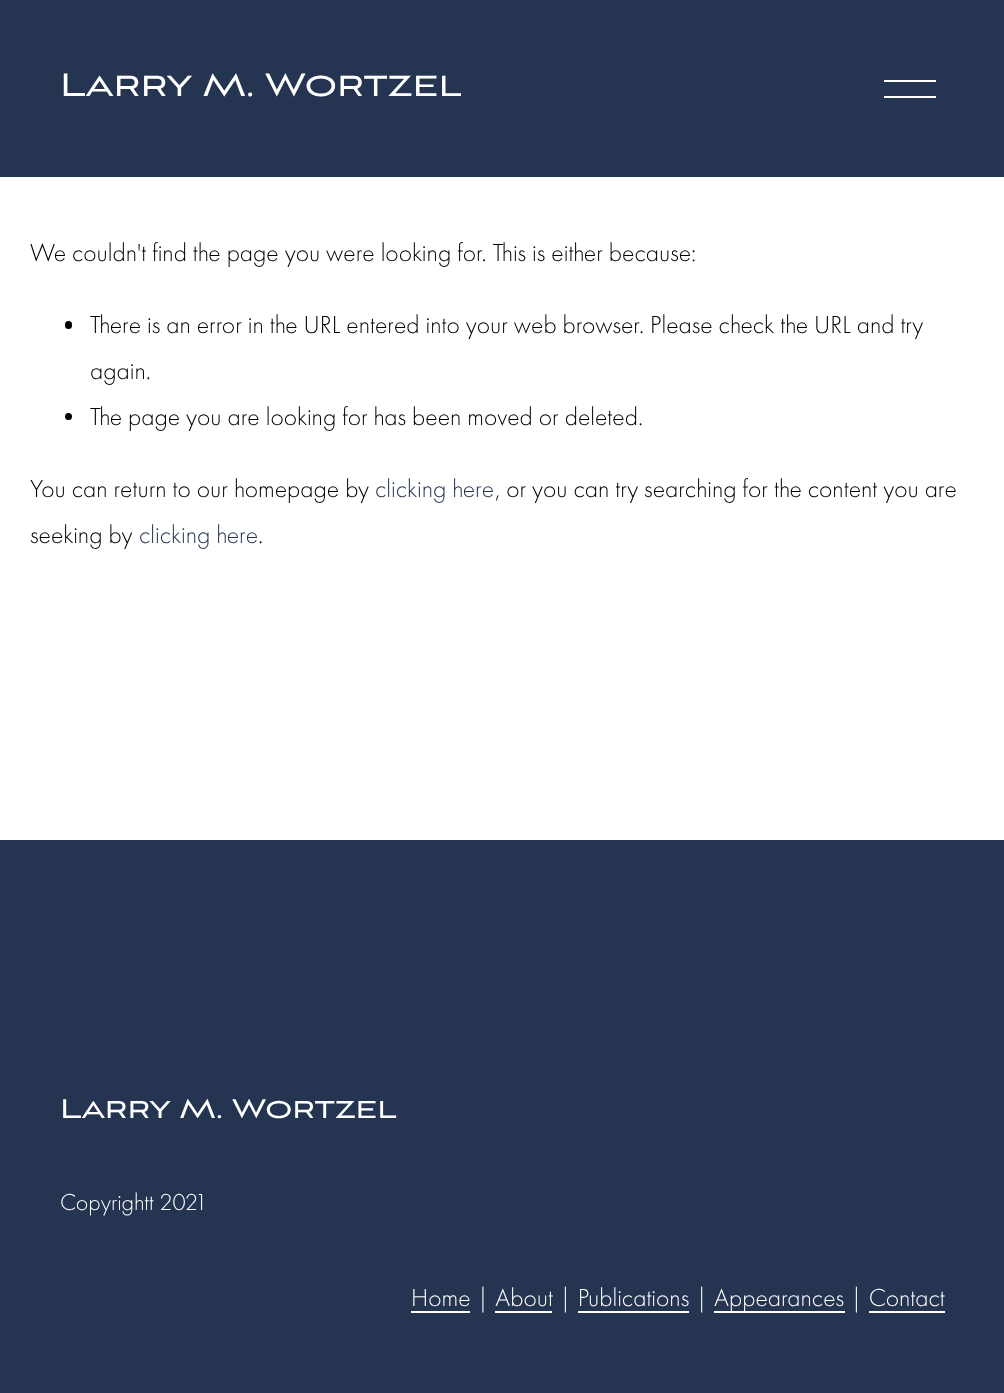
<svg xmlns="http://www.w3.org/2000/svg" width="1004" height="1393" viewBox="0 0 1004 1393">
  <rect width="100%" height="100%" fill="rgb(255,255,255)"/>
  <rect x="0" y="0" width="1004" height="177" fill="rgb(37,53,81)"/>
  <text x="60" y="96" font-family="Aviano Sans" font-size="40.25" fill="rgb(255,255,255)">Larry M. Wortzel</text>
  <rect x="884" y="80" width="52" height="2" fill="rgb(255,255,255)"/>
  <rect x="884" y="96" width="52" height="2" fill="rgb(255,255,255)"/>
  <text x="30" y="261" font-family="Futura PT" font-size="25.6" font-weight="300" fill="rgb(0,0,0)">We couldn't find the page you were looking for. This is either because:</text>
  <rect x="65" y="321" width="7" height="8" rx="3.5" fill="rgb(0,0,0)"/>
  <g font-family="Futura PT" font-size="25.6" font-weight="300" fill="rgb(0,0,0)">
    <text>
      <tspan x="90" y="333">There is an error in the URL entered into your web browser. Please check the URL and try</tspan>
      <tspan x="90" y="379">again.</tspan>
    </text>
  </g>
  <circle cx="68.5" cy="416.5" r="3.5" fill="rgb(0,0,0)"/>
  <g font-family="Futura PT" font-size="25.6" font-weight="300" fill="rgb(0,0,0)">
    <text x="90" y="425">The page you are looking for has been moved or deleted.</text>
    <text x="30" y="497">You can return to our homepage by</text>
  </g>
  <text x="375" y="497" font-family="Futura PT" font-size="25.6" font-weight="300" fill="rgb(37,53,81)">clicking here</text>
  <g font-family="Futura PT" font-size="25.6" font-weight="300" fill="rgb(0,0,0)">
    <text x="495" y="497">, or you can try searching for the content you are</text>
    <text x="30" y="543">seeking by</text>
  </g>
  <text x="139" y="543" font-family="Futura PT" font-size="25.6" font-weight="300" fill="rgb(37,53,81)">clicking here</text>
  <text x="258" y="543" font-family="Futura PT" font-size="25.6" font-weight="300" fill="rgb(0,0,0)">.</text>
  <rect x="0" y="840" width="1004" height="553" fill="rgb(37,53,81)"/>
  <text x="60" y="1118" font-family="Aviano Sans" font-size="33.75" fill="rgb(255,255,255)">Larry M. Wortzel</text>
  <text x="60" y="1210" font-family="Futura PT" font-size="24" font-weight="300" fill="rgb(255,255,255)">Copyrightt 2021</text>
  <rect x="411" y="1311" width="59" height="2" fill="rgb(255,255,255)"/>
  <text x="411" y="1306" font-family="Futura PT" font-size="25.6" font-weight="300" fill="rgb(255,255,255)">Home | About | Publications |</text>
  <rect x="714" y="1311" width="131" height="2" fill="rgb(255,255,255)"/>
  <text x="714" y="1306" font-family="Futura PT" font-size="25.6" font-weight="300" fill="rgb(255,255,255)">Appearances | Contact</text>
  <rect x="495" y="1311" width="57" height="2" fill="rgb(255,255,255)"/>
  <rect x="578" y="1311" width="111" height="2" fill="rgb(255,255,255)"/>
  <rect x="869" y="1311" width="76" height="2" fill="rgb(255,255,255)"/>
</svg>
